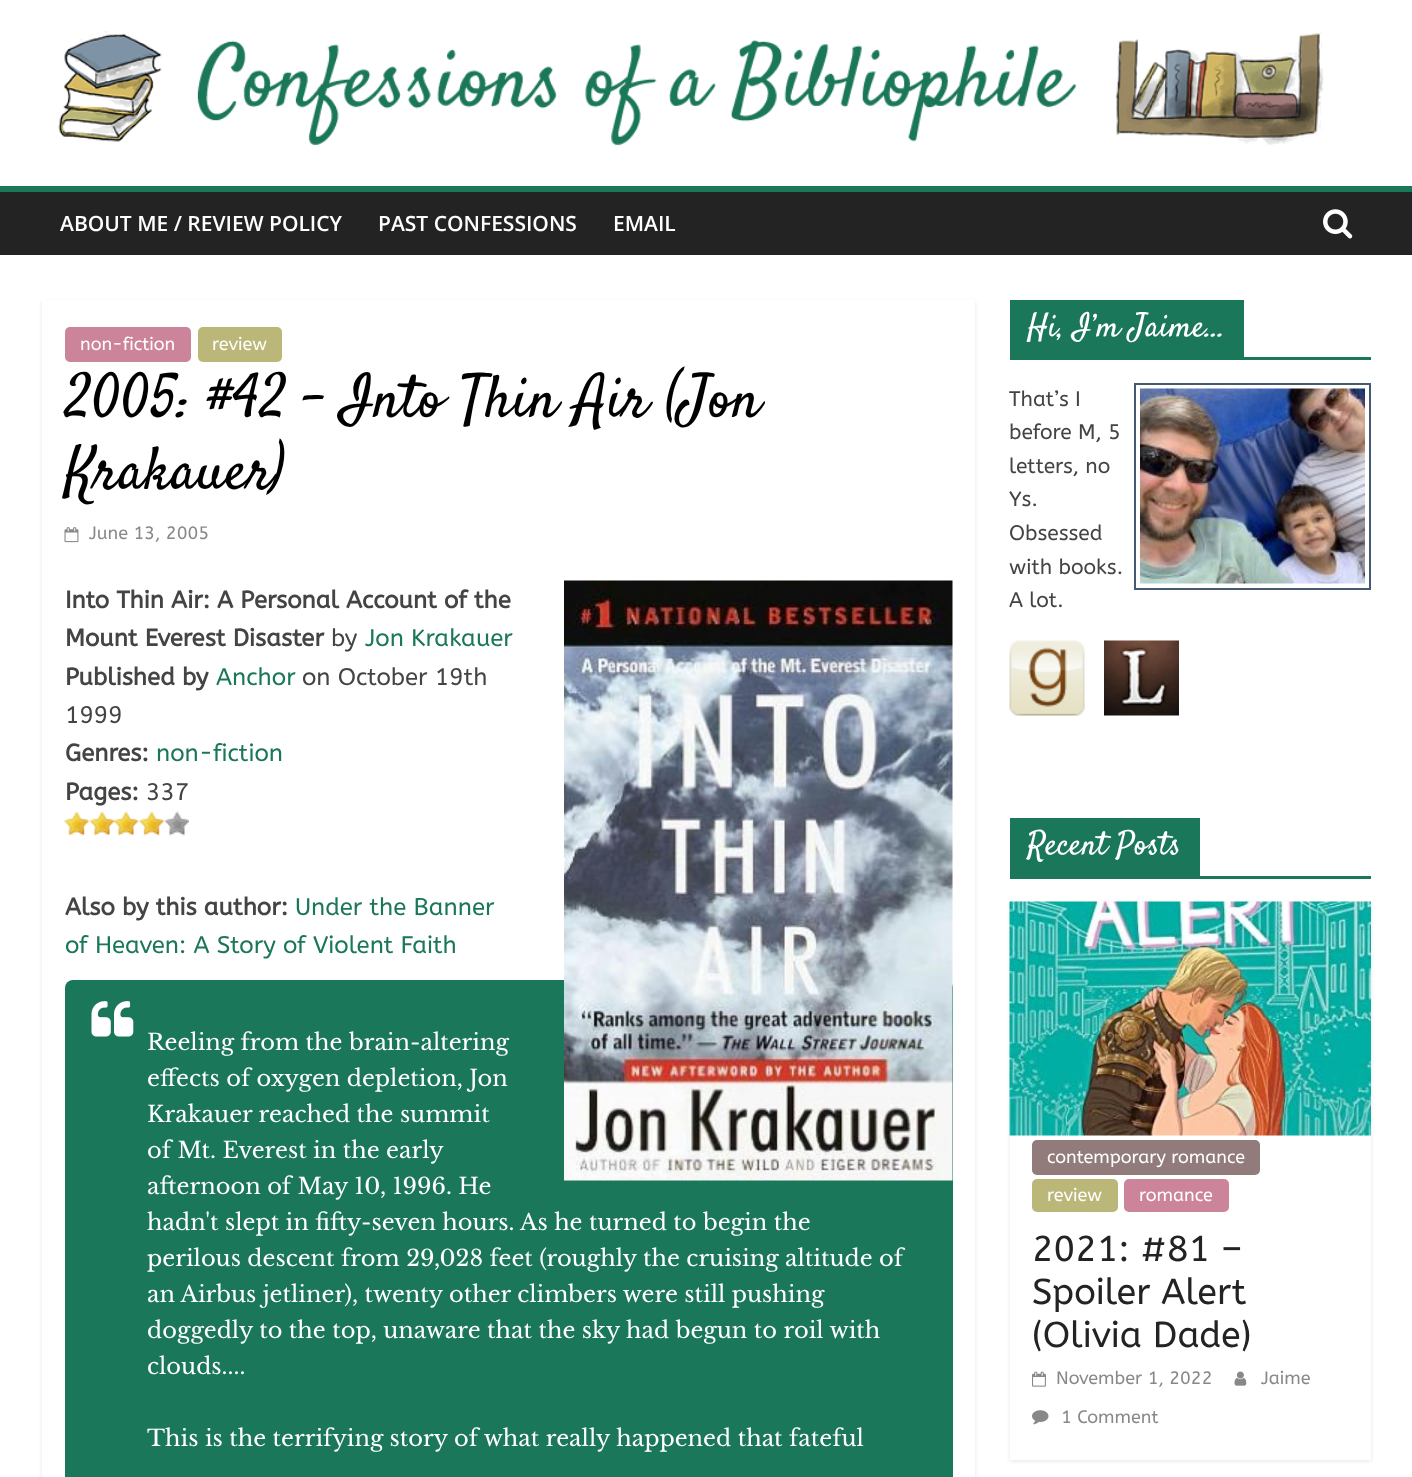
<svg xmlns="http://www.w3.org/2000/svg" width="1412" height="1477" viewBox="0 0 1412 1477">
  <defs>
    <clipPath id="clip1"><path d="M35 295H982V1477H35ZM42 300H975V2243H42Z" clip-rule="evenodd"/></clipPath>
    <clipPath id="clip2"><path d="M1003 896H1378V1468H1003ZM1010 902H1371V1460H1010Z" clip-rule="evenodd"/></clipPath>
  </defs>
  <rect width="100%" height="100%" fill="rgb(255,255,255)"/>
  <image x="58" y="31" width="1268" height="115" href="pic1.png"/>
  <rect x="0" y="192" width="1412" height="63" fill="rgb(35,35,35)"/>
  <rect x="0" y="186" width="1412" height="6" fill="rgb(27,119,89)"/>
  <g font-family="Open Sans" font-size="21" font-weight="600" fill="rgb(255,255,255)">
    <text x="60" y="231">ABOUT ME / REVIEW POLICY</text>
    <text x="378" y="231">PAST CONFESSIONS</text>
    <text x="613" y="231">EMAIL</text>
  </g>
  <image x="1323" y="209" width="30" height="30" href="pic2.png"/>
  <g clip-path="url(#clip1)">
    <rect x="42" y="302" width="933" height="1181" fill="rgba(0,0,0,0.1)" filter="blur(2px)"/>
  </g>
  <rect x="65" y="327" width="126" height="35" rx="5" fill="rgb(204,132,154)"/>
  <text x="80" y="350" font-family="ABeeZee" font-size="18" fill="rgb(255,255,255)">non-fiction</text>
  <rect x="198" y="327" width="84" height="35" rx="5" fill="rgb(187,183,121)"/>
  <text x="212" y="350" font-family="ABeeZee" font-size="18" fill="rgb(255,255,255)">review</text>
  <g font-family="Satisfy" font-size="60" fill="rgb(0,0,0)">
    <text>
      <tspan x="65" y="416">2005: #42 – Into Thin Air (Jon</tspan>
      <tspan x="65" y="488">Krakauer)</tspan>
    </text>
  </g>
  <image x="64" y="527" width="15" height="16" href="pic3.png"/>
  <text x="89" y="539" font-family="ABeeZee" font-size="18" fill="rgb(136,136,136)">June 13, 2005</text>
  <text x="65" y="608" font-family="ABeeZee" font-size="24" font-weight="bold" fill="rgb(68,68,68)">Into Thin Air: A Personal Account of the</text>
  <rect x="65" y="980" width="888" height="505" rx="8" fill="rgb(27,119,89)"/>
  <image x="564" y="580" width="389" height="601" href="pic4.png"/>
  <text x="65" y="646" font-family="ABeeZee" font-size="24" font-weight="bold" fill="rgb(68,68,68)">Mount Everest Disaster</text>
  <text x="331" y="646" font-family="ABeeZee" font-size="24" fill="rgb(68,68,68)">by</text>
  <text x="365" y="646" font-family="ABeeZee" font-size="24" fill="rgb(27,119,89)">Jon Krakauer</text>
  <text x="65" y="685" font-family="ABeeZee" font-size="24" font-weight="bold" fill="rgb(68,68,68)">Published by</text>
  <text x="216" y="685" font-family="ABeeZee" font-size="24" fill="rgb(27,119,89)">Anchor</text>
  <g font-family="ABeeZee" font-size="24" fill="rgb(68,68,68)">
    <text x="302" y="685">on October 19th</text>
    <text x="65" y="723">1999</text>
  </g>
  <text x="65" y="761" font-family="ABeeZee" font-size="24" font-weight="bold" fill="rgb(68,68,68)">Genres:</text>
  <text x="156" y="761" font-family="ABeeZee" font-size="24" fill="rgb(27,119,89)">non-fiction</text>
  <text x="65" y="800" font-family="ABeeZee" font-size="24" font-weight="bold" fill="rgb(68,68,68)">Pages:</text>
  <text x="146" y="800" font-family="ABeeZee" font-size="24" fill="rgb(68,68,68)">337</text>
  <image x="64" y="811" width="125" height="25" href="pic5.png"/>
  <text x="65" y="915" font-family="ABeeZee" font-size="24" font-weight="bold" fill="rgb(68,68,68)">Also by this author:</text>
  <g font-family="ABeeZee" font-size="24" fill="rgb(27,119,89)">
    <text x="295" y="915">Under the Banner</text>
    <text x="65" y="953">of Heaven: A Story of Violent Faith</text>
  </g>
  <image x="91" y="1001" width="43" height="36" href="pic6.png"/>
  <g font-family="Libre Baskerville" font-size="22.5" fill="rgb(255,255,255)">
    <text>
      <tspan x="147" y="1050">Reeling from the brain-altering</tspan>
      <tspan x="147" y="1086">effects of oxygen depletion, Jon</tspan>
      <tspan x="147" y="1122">Krakauer reached the summit</tspan>
      <tspan x="147" y="1158">of Mt. Everest in the early</tspan>
      <tspan x="147" y="1194">afternoon of May 10, 1996. He</tspan>
      <tspan x="147" y="1230">hadn't slept in fifty-seven hours. As he turned to begin the</tspan>
      <tspan x="147" y="1266">perilous descent from 29,028 feet (roughly the cruising altitude of</tspan>
      <tspan x="147" y="1302">an Airbus jetliner), twenty other climbers were still pushing</tspan>
      <tspan x="147" y="1338">doggedly to the top, unaware that the sky had begun to roil with</tspan>
      <tspan x="147" y="1374">clouds....</tspan>
    </text>
    <text x="147" y="1446">This is the terrifying story of what really happened that fateful</text>
  </g>
  <rect x="1010" y="357" width="361" height="3" fill="rgb(27,119,89)"/>
  <rect x="1010" y="300" width="234" height="57" fill="rgb(27,119,89)"/>
  <text x="1027" y="336" font-family="Satisfy" font-size="33" fill="rgb(255,255,255)">Hi, I’m Jaime…</text>
  <text x="1009" y="406" font-family="ABeeZee" font-size="21" fill="rgb(68,68,68)">That’s I</text>
  <rect x="1135" y="384" width="235" height="205" fill="none" stroke="rgb(69,89,115)" stroke-width="2"/>
  <image x="1140" y="388" width="225" height="196" href="pic7.png"/>
  <g font-family="ABeeZee" font-size="21" fill="rgb(68,68,68)">
    <text>
      <tspan x="1009" y="439">before M, 5</tspan>
      <tspan x="1009" y="473">letters, no</tspan>
      <tspan x="1009" y="506">Ys.</tspan>
      <tspan x="1009" y="540">Obsessed</tspan>
      <tspan x="1009" y="574">with books.</tspan>
      <tspan x="1009" y="607">A lot.</tspan>
    </text>
  </g>
  <image x="1009" y="640" width="76" height="76" href="pic8.png"/>
  <image x="1104" y="640" width="75" height="76" href="pic9.png"/>
  <rect x="1010" y="876" width="361" height="3" fill="rgb(27,119,89)"/>
  <rect x="1010" y="818" width="190" height="58" fill="rgb(27,119,89)"/>
  <text x="1027" y="854" font-family="Satisfy" font-size="33" fill="rgb(255,255,255)">Recent Posts</text>
  <g clip-path="url(#clip2)">
    <rect x="1010" y="903" width="361" height="558" fill="rgba(0,0,0,0.1)" filter="blur(2px)"/>
  </g>
  <image x="1009" y="901" width="362" height="235" href="pic10.png"/>
  <rect x="1032" y="1140" width="228" height="35" rx="5" fill="rgb(146,123,123)"/>
  <text x="1047" y="1163" font-family="ABeeZee" font-size="18" fill="rgb(255,255,255)">contemporary romance</text>
  <rect x="1032" y="1179" width="86" height="33" rx="5" fill="rgb(187,183,121)"/>
  <text x="1047" y="1201" font-family="ABeeZee" font-size="18" fill="rgb(255,255,255)">review</text>
  <rect x="1124" y="1179" width="105" height="33" rx="5" fill="rgb(204,132,154)"/>
  <text x="1139" y="1201" font-family="ABeeZee" font-size="18" fill="rgb(255,255,255)">romance</text>
  <g font-family="ABeeZee" font-size="36" fill="rgb(35,35,35)">
    <text>
      <tspan x="1032" y="1261">2021: #81 –</tspan>
      <tspan x="1032" y="1304">Spoiler Alert</tspan>
      <tspan x="1032" y="1347">(Olivia Dade)</tspan>
    </text>
  </g>
  <image x="1032" y="1371" width="14" height="16" href="pic11.png"/>
  <text x="1056" y="1384" font-family="ABeeZee" font-size="18" fill="rgb(136,136,136)">November 1, 2022</text>
  <image x="1234" y="1371" width="13" height="15" href="pic12.png"/>
  <text x="1261" y="1384" font-family="ABeeZee" font-size="18" fill="rgb(136,136,136)">Jaime</text>
  <image x="1032" y="1410" width="17" height="15" href="pic13.png"/>
  <text x="1061" y="1423" font-family="ABeeZee" font-size="18" fill="rgb(136,136,136)">1 Comment</text>
</svg>
